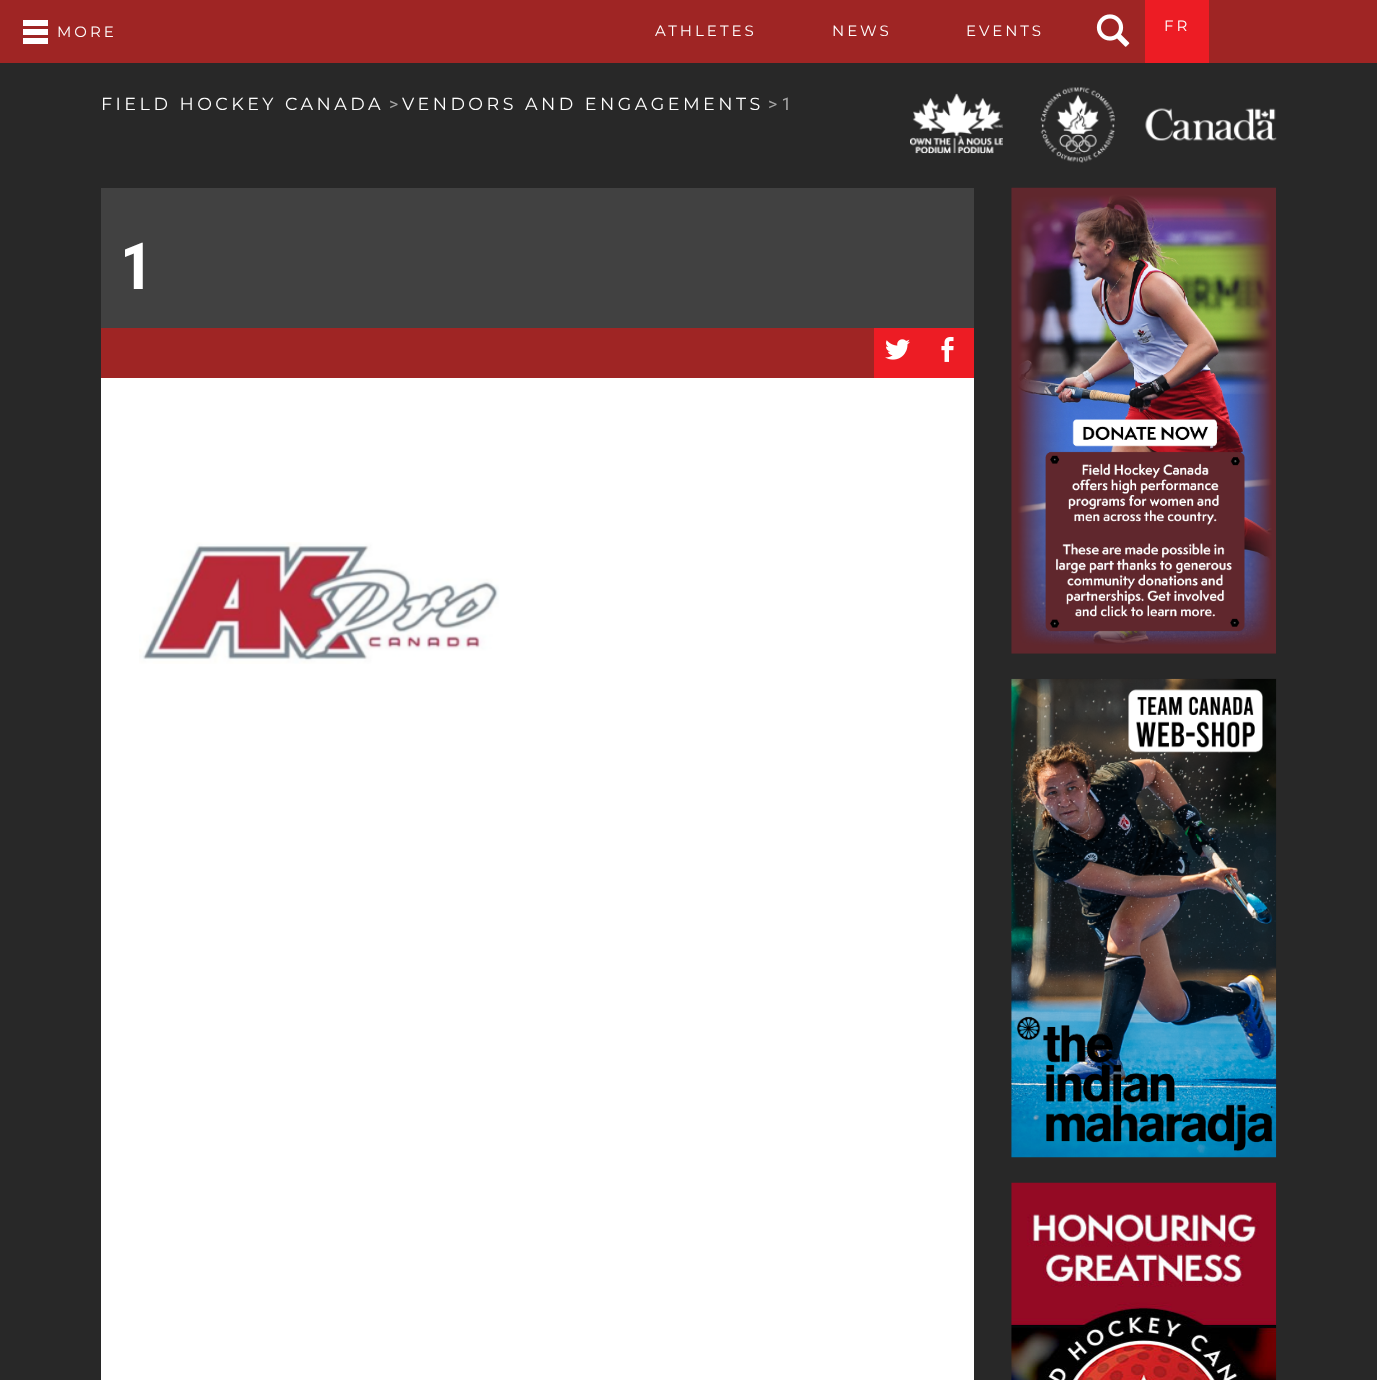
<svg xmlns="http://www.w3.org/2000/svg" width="1377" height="1380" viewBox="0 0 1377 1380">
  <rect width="100%" height="100%" fill="rgb(40,40,40)"/>
  <rect x="0" y="0" width="1377" height="63" fill="rgb(159,37,36)"/>
  <rect x="23" y="20" width="25" height="6" fill="rgb(255,255,255)"/>
  <rect x="23" y="29" width="25" height="6" fill="rgb(255,255,255)"/>
  <rect x="23" y="38" width="25" height="6" fill="rgb(255,255,255)"/>
  <g font-family="Montserrat" font-size="15" font-weight="100" letter-spacing="3" fill="rgb(255,255,255)">
    <text x="57" y="37">MORE</text>
    <text x="655" y="36">ATHLETES</text>
    <text x="832" y="36">NEWS</text>
    <text x="966" y="36">EVENTS</text>
  </g>
  <image x="1096" y="14" width="34" height="33" href="pic1.png"/>
  <rect x="1145" y="0" width="64" height="63" fill="rgb(237,28,36)"/>
  <text x="1164" y="31" font-family="Montserrat" font-size="15" font-weight="100" letter-spacing="3" fill="rgb(255,255,255)">FR</text>
  <text x="101" y="110" font-family="Montserrat" font-size="17.5" font-weight="100" letter-spacing="3.5" fill="rgb(255,255,255)">FIELD HOCKEY CANADA</text>
  <text x="389" y="110" font-family="Roboto" font-size="17.5" fill="rgb(165,165,165)">&gt;</text>
  <text x="402" y="110" font-family="Montserrat" font-size="17.5" font-weight="100" letter-spacing="3.5" fill="rgb(255,255,255)">VENDORS AND ENGAGEMENTS</text>
  <text x="768" y="110" font-family="Roboto" font-size="17.5" fill="rgb(165,165,165)">&gt; 1</text>
  <image x="910" y="87" width="367" height="76" href="pic2.png"/>
  <rect x="101" y="188" width="873" height="140" fill="rgb(65,65,65)"/>
  <text x="120" y="289" font-family="Roboto Condensed" font-size="65" font-weight="bold" fill="rgb(255,255,255)">1</text>
  <rect x="101" y="328" width="773" height="50" fill="rgb(159,37,36)"/>
  <rect x="874" y="328" width="100" height="50" fill="rgb(237,28,36)"/>
  <image x="885" y="339" width="25" height="21" href="pic3.png"/>
  <image x="941" y="336" width="13" height="26" href="pic4.png"/>
  <rect x="101" y="378" width="873" height="1002" fill="rgb(255,255,255)"/>
  <image x="139" y="542" width="361" height="122" href="pic5.png"/>
  <image x="1011" y="187" width="265" height="467" href="pic6.png"/>
  <image x="1011" y="678" width="266" height="480" href="pic7.png"/>
  <image x="1011" y="1182" width="266" height="198" href="pic8.png"/>
</svg>
